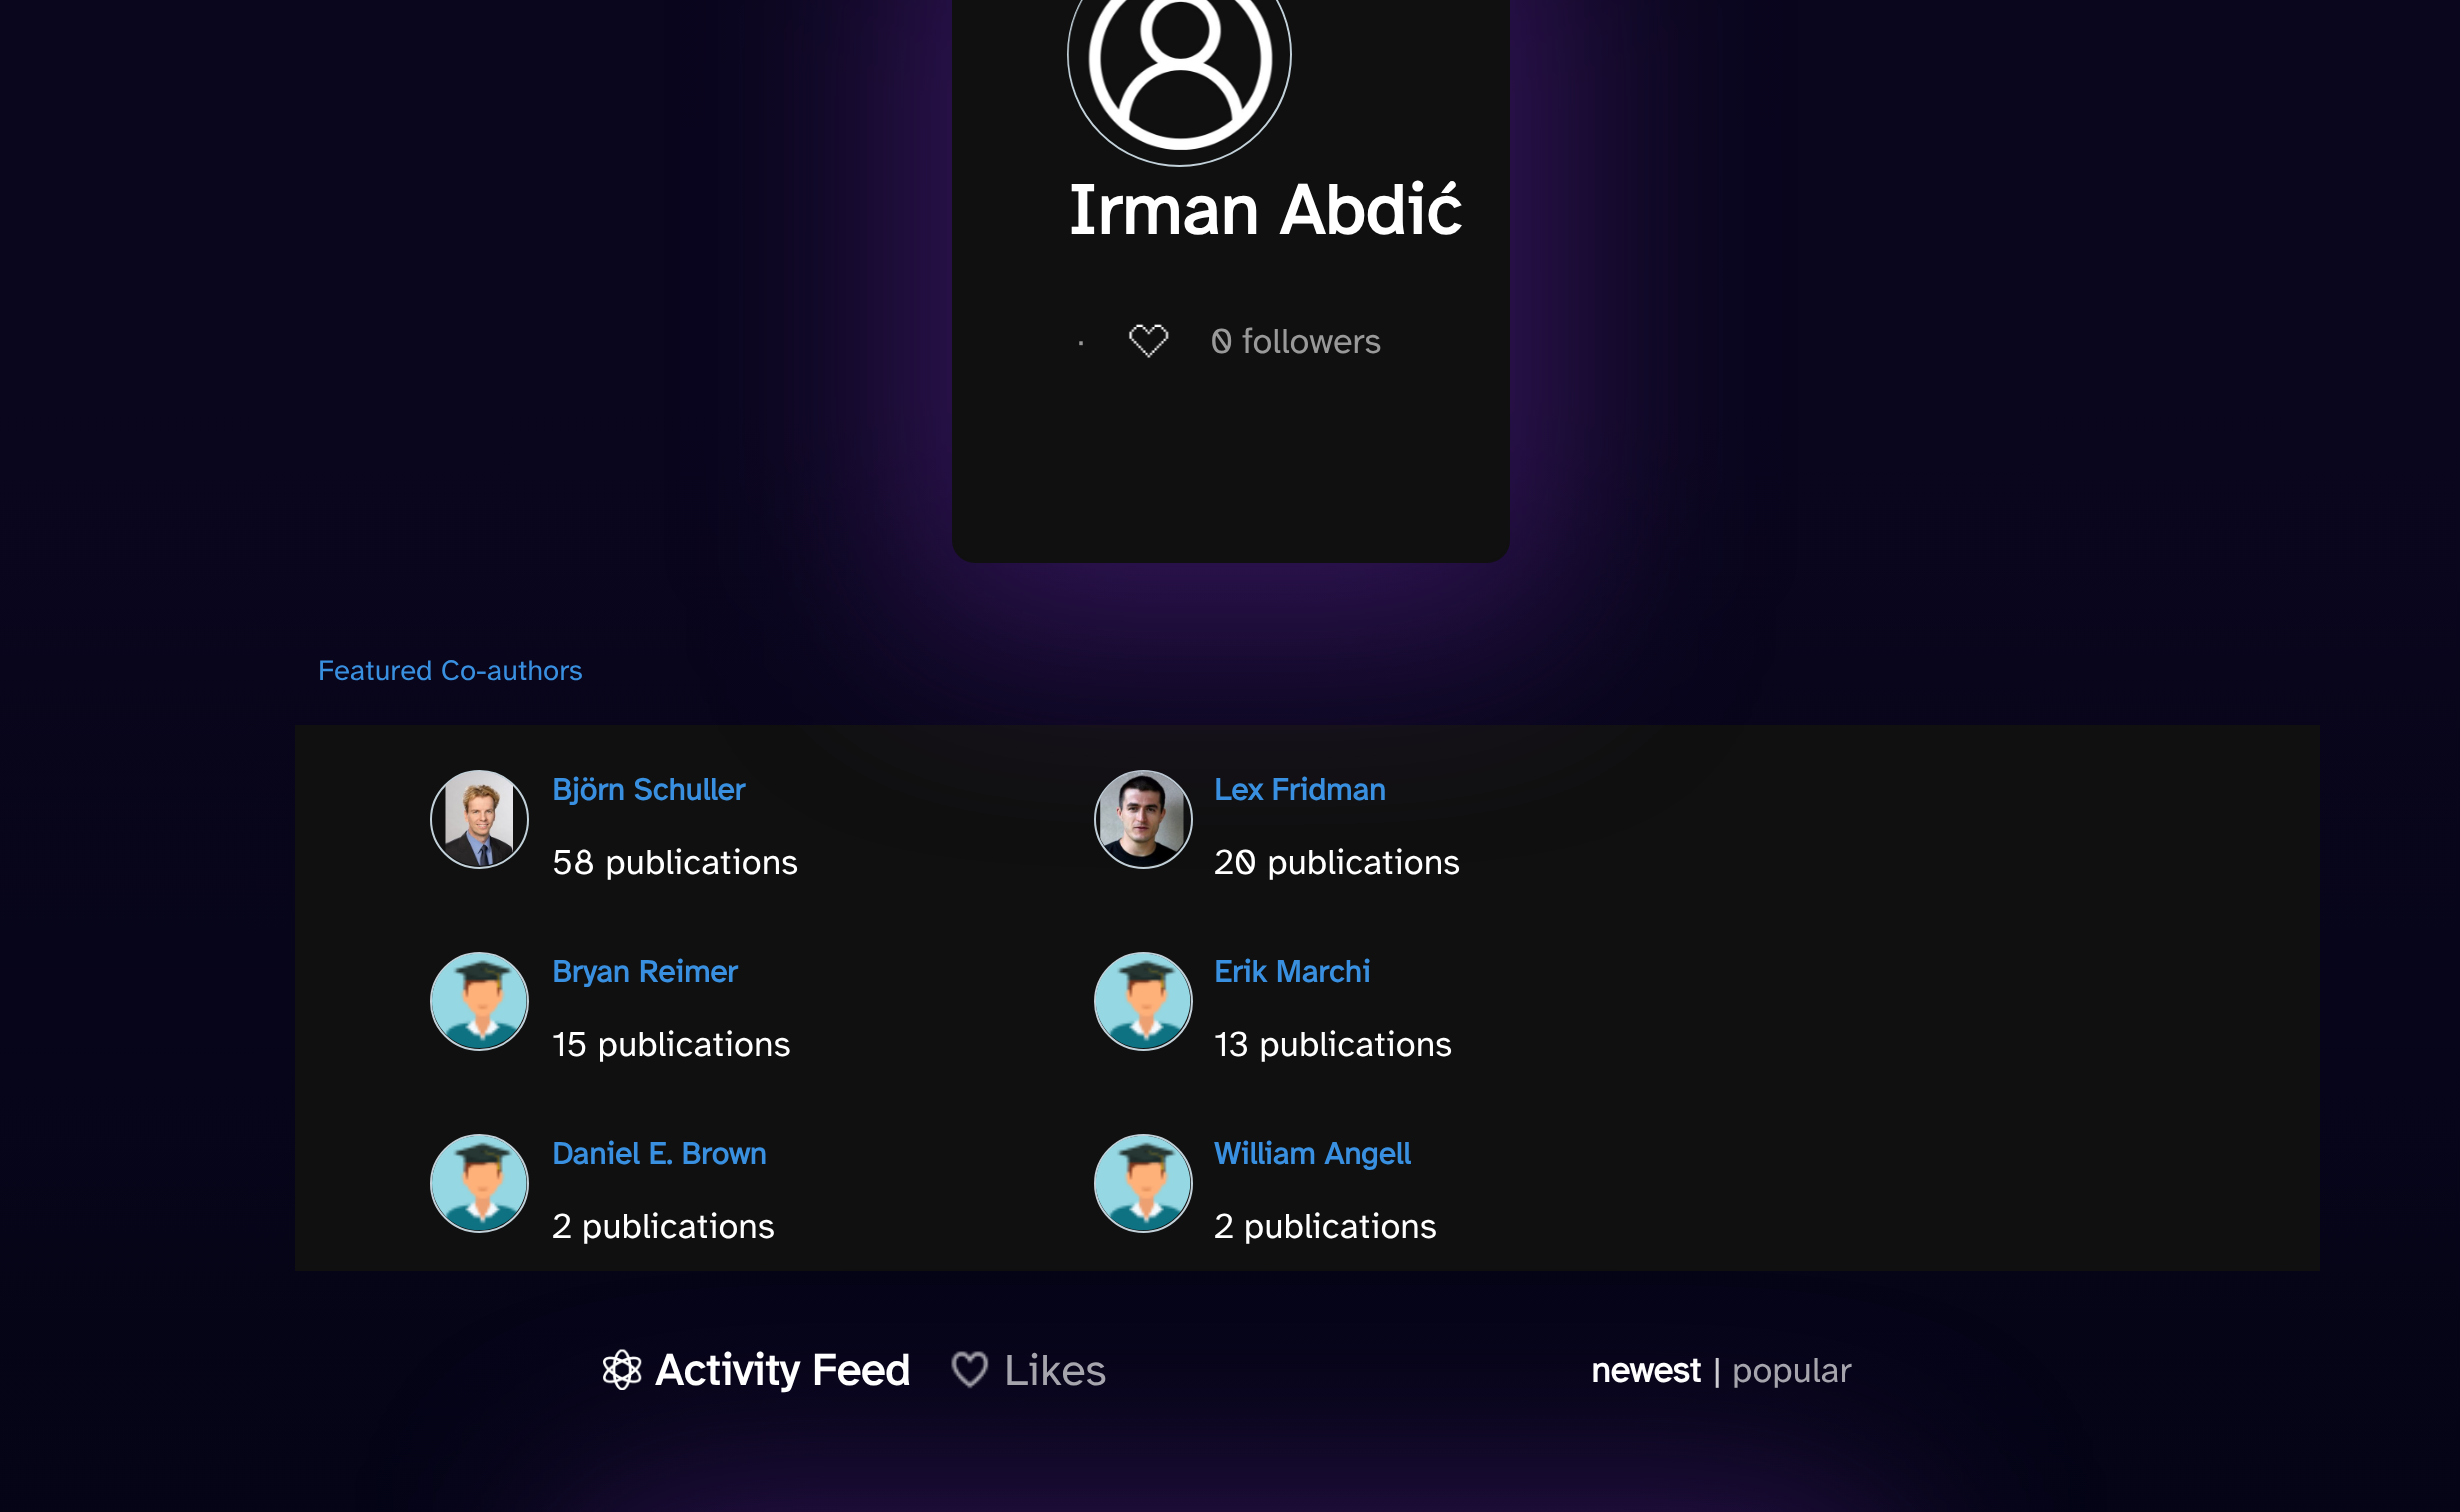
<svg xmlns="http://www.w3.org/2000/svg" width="2460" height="1512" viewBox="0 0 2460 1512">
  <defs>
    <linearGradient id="g1" gradientUnits="userSpaceOnUse" x1="1231" y1="-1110" x2="1231" y2="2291"><stop offset="0" stop-color="rgb(119,41,170)"/><stop offset="0.12" stop-color="rgb(23,10,45)"/><stop offset="0.18" stop-color="rgb(10,6,29)"/><stop offset="0.44" stop-color="rgb(10,6,30)"/><stop offset="0.99" stop-color="rgb(1,3,17)"/></linearGradient>
  </defs>
  <rect width="100%" height="100%" fill="rgb(255,255,255)"/>
  <rect x="0" y="0" width="2460" height="1512" fill="url(#g1)"/>
  <rect x="295" y="725" width="2025" height="546" fill="rgb(16,16,16)"/>
  <circle cx="1143.5" cy="819.5" r="48.5" fill="none" stroke="rgb(194,209,217)" stroke-width="2"/>
  <image x="1100" y="771" width="84" height="95" href="pic4.png"/>
  <rect x="907" y="-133" width="648" height="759" rx="68" fill="rgba(71,28,115,0.7)" filter="blur(103.5px)"/>
  <rect x="953" y="-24" width="556" height="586" rx="22" fill="rgb(16,16,16)" stroke="rgb(16,16,16)" stroke-width="2"/>
  <circle cx="1179.5" cy="54.5" r="111.5" fill="none" stroke="rgb(194,209,217)" stroke-width="2"/>
  <image x="1068" y="0" width="222" height="150" href="pic1.png"/>
  <text x="1067" y="234" font-family="Atkinson Hyperlegible" font-size="72" font-weight="bold" fill="rgb(255,255,255)">Irman Abdić</text>
  <text x="1076" y="353" font-family="Liberation Sans" font-size="36" fill="rgb(153,153,153)">∙</text>
  <image x="1128" y="324" width="41" height="34" href="pic2.png"/>
  <g font-family="Atkinson Hyperlegible" font-size="36" fill="rgb(153,153,153)">
    <text x="1210" y="353">0</text>
    <text x="1242" y="353">followers</text>
  </g>
  <text x="318" y="680" font-family="Atkinson Hyperlegible" font-size="29.25" fill="rgb(58,144,224)">Featured Co-authors</text>
  <circle cx="479.5" cy="819.5" r="48.5" fill="none" stroke="rgb(194,209,217)" stroke-width="2"/>
  <image x="445" y="771" width="68" height="95" href="pic3.png"/>
  <text x="552" y="800" font-family="Atkinson Hyperlegible" font-size="31.5" font-weight="bold" fill="rgb(58,144,224)">Björn Schuller</text>
  <text x="552" y="874" font-family="Atkinson Hyperlegible" font-size="36" fill="rgb(255,255,255)">58 publications</text>
  <text x="1214" y="800" font-family="Atkinson Hyperlegible" font-size="31.5" font-weight="bold" fill="rgb(58,144,224)">Lex Fridman</text>
  <text x="1214" y="874" font-family="Atkinson Hyperlegible" font-size="36" fill="rgb(255,255,255)">20 publications</text>
  <circle cx="479.5" cy="1001.5" r="48.5" fill="none" stroke="rgb(194,209,217)" stroke-width="2"/>
  <image x="432" y="953" width="95" height="95" href="pic5.png"/>
  <text x="552" y="982" font-family="Atkinson Hyperlegible" font-size="31.5" font-weight="bold" fill="rgb(58,144,224)">Bryan Reimer</text>
  <text x="552" y="1056" font-family="Atkinson Hyperlegible" font-size="36" fill="rgb(255,255,255)">15 publications</text>
  <circle cx="1143.5" cy="1001.5" r="48.5" fill="none" stroke="rgb(194,209,217)" stroke-width="2"/>
  <image x="1096" y="953" width="95" height="95" href="pic6.png"/>
  <text x="1214" y="982" font-family="Atkinson Hyperlegible" font-size="31.5" font-weight="bold" fill="rgb(58,144,224)">Erik Marchi</text>
  <text x="1214" y="1056" font-family="Atkinson Hyperlegible" font-size="36" fill="rgb(255,255,255)">13 publications</text>
  <circle cx="479.5" cy="1183.5" r="48.5" fill="none" stroke="rgb(194,209,217)" stroke-width="2"/>
  <image x="432" y="1136" width="95" height="95" href="pic7.png"/>
  <text x="552" y="1164" font-family="Atkinson Hyperlegible" font-size="31.5" font-weight="bold" fill="rgb(58,144,224)">Daniel E. Brown</text>
  <text x="552" y="1238" font-family="Atkinson Hyperlegible" font-size="36" fill="rgb(255,255,255)">2 publications</text>
  <circle cx="1143.5" cy="1183.5" r="48.5" fill="none" stroke="rgb(194,209,217)" stroke-width="2"/>
  <image x="1096" y="1136" width="95" height="95" href="pic8.png"/>
  <text x="1214" y="1164" font-family="Atkinson Hyperlegible" font-size="31.5" font-weight="bold" fill="rgb(58,144,224)">William Angell</text>
  <text x="1214" y="1238" font-family="Atkinson Hyperlegible" font-size="36" fill="rgb(255,255,255)">2 publications</text>
  <rect x="576" y="1512" width="1310" height="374" rx="63" fill="rgba(71,28,115,0.7)" filter="blur(103.5px)"/>
  <image x="603" y="1349" width="39" height="41" href="pic9.png"/>
  <text x="655" y="1385" font-family="Atkinson Hyperlegible" font-size="45" font-weight="bold" fill="rgb(255,255,255)">Activity Feed</text>
  <image x="951" y="1351" width="38" height="38" href="pic10.png"/>
  <text x="1004" y="1385" font-family="Atkinson Hyperlegible" font-size="45" fill="rgb(166,165,173)">Likes</text>
  <text x="1591" y="1382" font-family="Atkinson Hyperlegible" font-size="36" font-weight="bold" fill="rgb(255,255,255)">newest</text>
  <text x="1713" y="1382" font-family="Atkinson Hyperlegible" font-size="36" fill="rgb(206,205,210)">|</text>
  <text x="1732" y="1382" font-family="Atkinson Hyperlegible" font-size="36" fill="rgb(166,165,173)">popular</text>
</svg>
